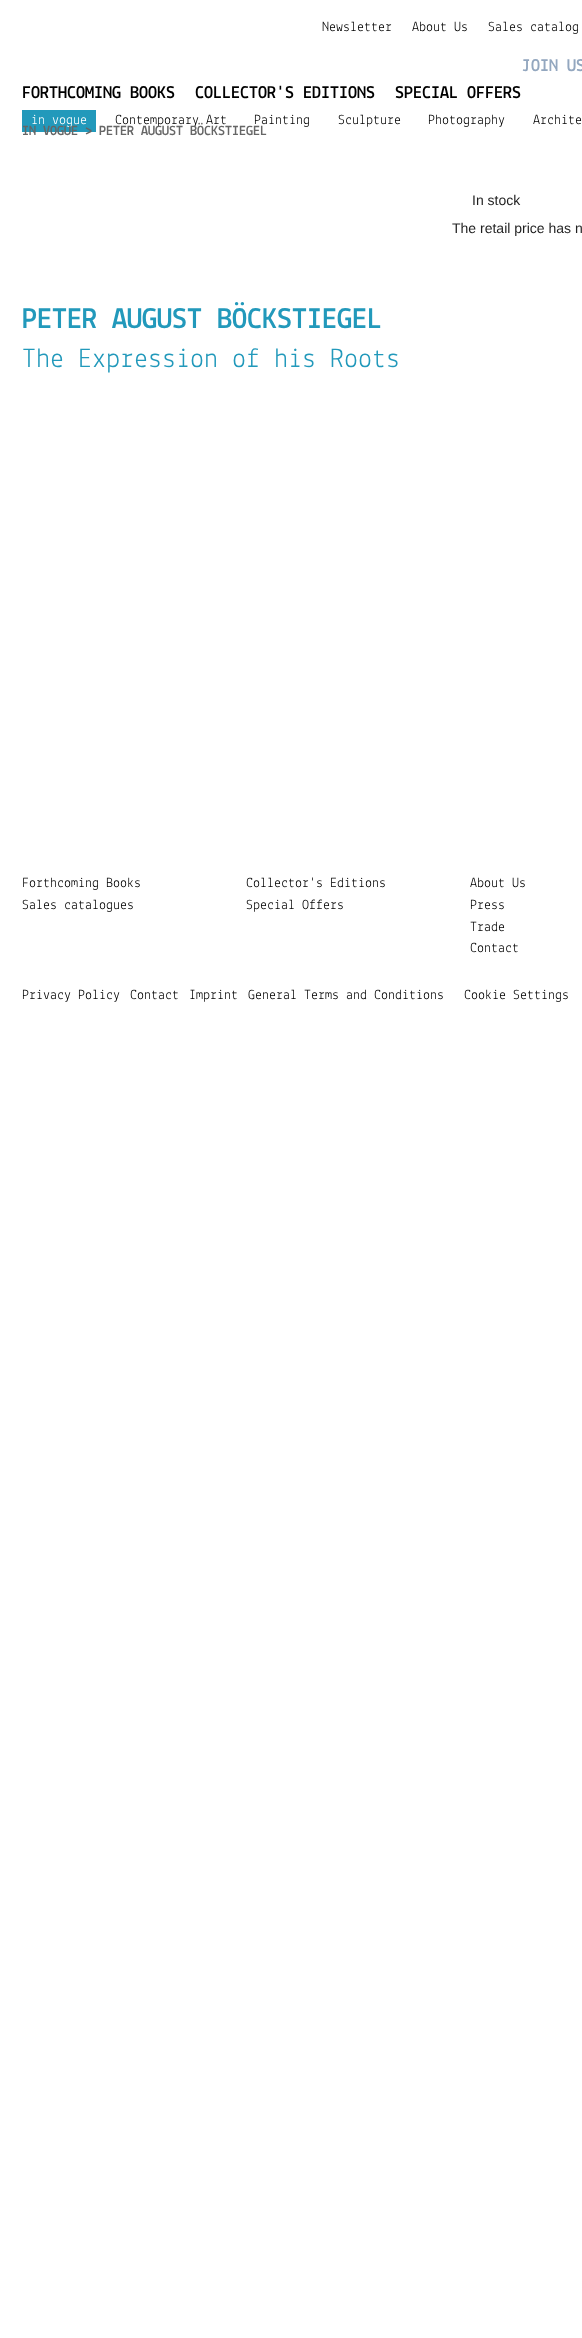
<svg xmlns="http://www.w3.org/2000/svg" width="582" height="2338" viewBox="0 0 582 2338">
  <style>*{font-kerning:none!important;font-variant-ligatures:none!important}</style>
  <rect width="100%" height="100%" fill="rgb(255,255,255)"/>
  <g font-family="Lekton" font-size="14" fill="rgb(0,0,0)">
    <text x="322" y="31">Newsletter</text>
    <text x="412" y="31">About Us</text>
    <text x="488" y="31">Sales catalog</text>
  </g>
  <text x="522" y="71" font-family="Lekton" font-size="18" font-weight="bold" fill="rgb(147,167,191)">JOIN US</text>
  <g font-family="Lekton" font-size="18" font-weight="bold" fill="rgb(0,0,0)">
    <text x="22" y="98">FORTHCOMING BOOKS</text>
    <text x="195" y="98">COLLECTOR'S EDITIONS</text>
    <text x="395" y="98">SPECIAL OFFERS</text>
  </g>
  <rect x="22" y="110" width="74" height="22" fill="rgb(34,153,187)"/>
  <text x="31" y="124" font-family="Lekton" font-size="14" fill="rgb(255,255,255)">in vogue</text>
  <g font-family="Lekton" font-size="14" fill="rgb(0,0,0)">
    <text x="115" y="124">Contemporary Art</text>
    <text x="254" y="124">Painting</text>
    <text x="338" y="124">Sculpture</text>
    <text x="428" y="124">Photography</text>
    <text x="533" y="124">Archite</text>
  </g>
  <text x="22" y="135" font-family="Lekton" font-size="14" font-weight="bold" fill="rgb(102,102,102)">IN VOGUE &gt; PETER AUGUST BÖCKSTIEGEL</text>
  <g font-family="Liberation Sans" font-size="14" fill="rgb(31,31,31)">
    <text x="472" y="205">In stock</text>
    <text x="452" y="233">The retail price has n</text>
  </g>
  <text x="22" y="328" font-family="Lekton" font-size="30" font-weight="bold" fill="rgb(34,153,187)">PETER AUGUST BÖCKSTIEGEL</text>
  <text x="22" y="367" font-family="Lekton" font-size="28" fill="rgb(34,153,187)">The Expression of his Roots</text>
  <g font-family="Lekton" font-size="14" fill="rgb(0,0,0)">
    <text>
      <tspan x="22" y="887">Forthcoming Books</tspan>
      <tspan x="22" y="909">Sales catalogues</tspan>
    </text>
    <text>
      <tspan x="246" y="887">Collector's Editions</tspan>
      <tspan x="246" y="909">Special Offers</tspan>
    </text>
    <text>
      <tspan x="470" y="887">About Us</tspan>
      <tspan x="470" y="909">Press</tspan>
      <tspan x="470" y="931">Trade</tspan>
      <tspan x="470" y="952">Contact</tspan>
    </text>
    <text x="22" y="999">Privacy Policy</text>
    <text x="130" y="999">Contact</text>
    <text x="189" y="999">Imprint</text>
    <text x="248" y="999">General Terms and Conditions</text>
    <text x="464" y="999">Cookie Settings</text>
  </g>
</svg>
